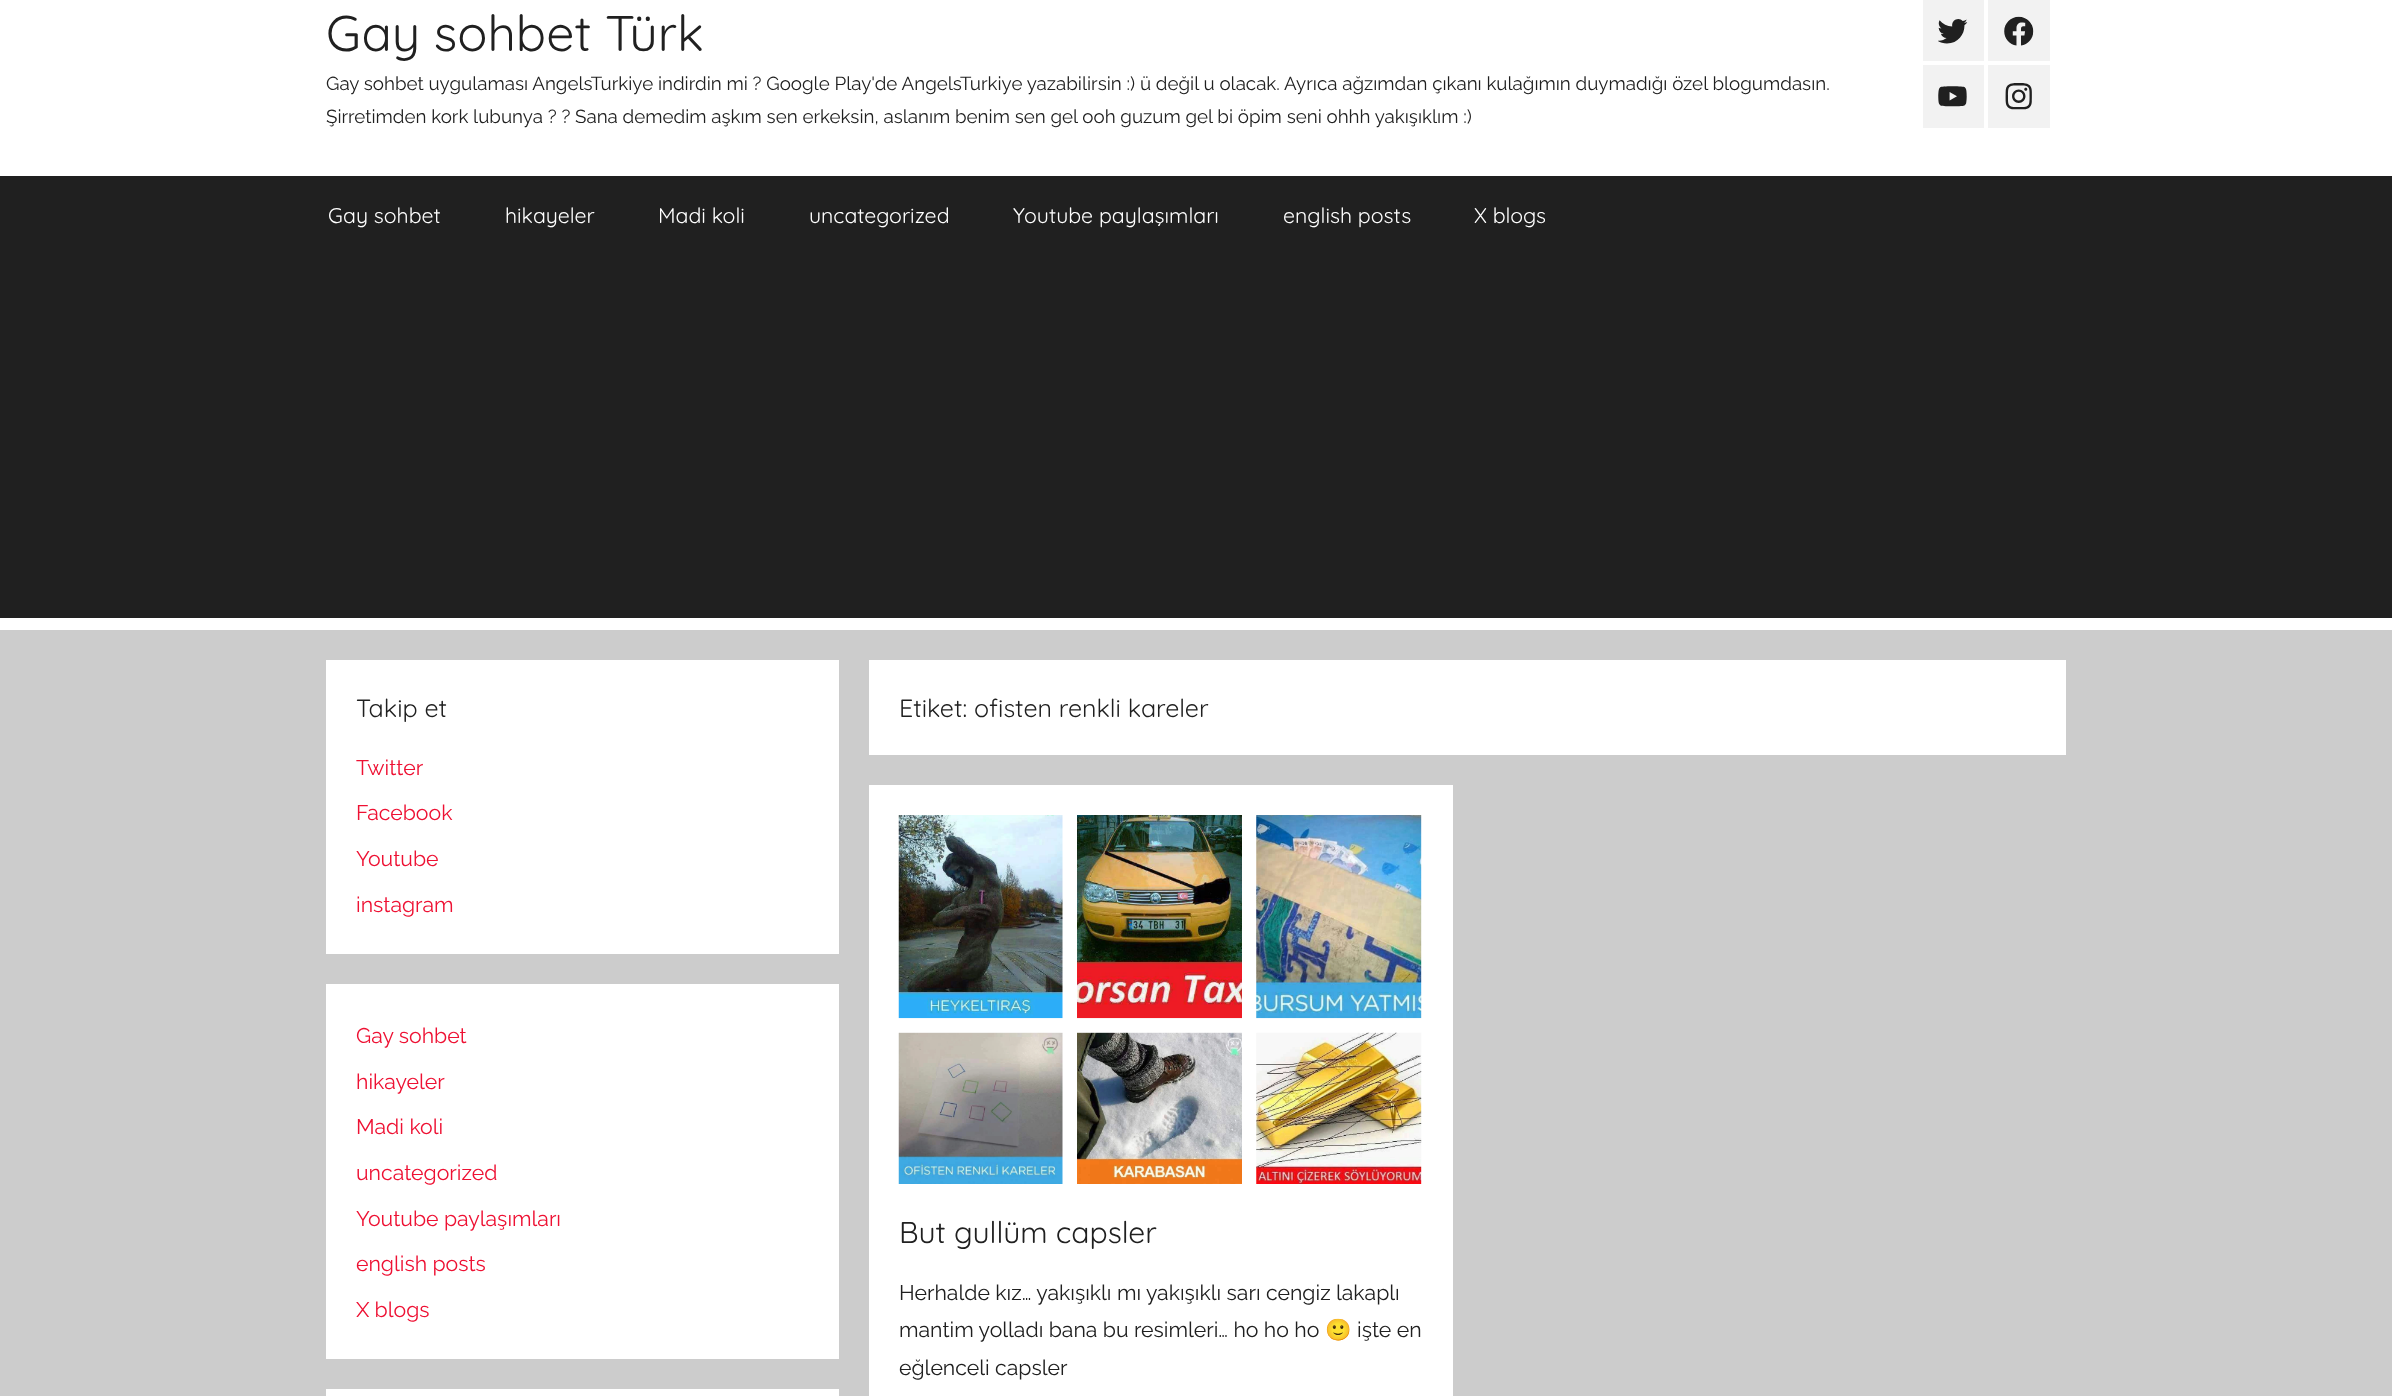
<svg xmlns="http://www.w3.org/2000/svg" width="2392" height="1396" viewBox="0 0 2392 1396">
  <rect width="100%" height="100%" fill="rgb(204,204,204)"/>
  <rect x="0" y="0" width="2392" height="630" fill="rgb(255,255,255)"/>
  <text x="326" y="51" font-family="Quicksand" font-size="50" fill="rgb(32,32,32)">Gay sohbet Türk</text>
  <g font-family="Raleway" font-size="18.75" fill="rgb(32,32,32)">
    <text>
      <tspan x="326" y="90">Gay sohbet uygulaması AngelsTurkiye indirdin mi ? Google Play'de AngelsTurkiye yazabilirsin :) ü değil u olacak. Ayrıca ağzımdan çıkanı kulağımın duymadığı özel blogumdasın.</tspan>
      <tspan x="326" y="123">Şirretimden kork lubunya ? ? Sana demedim aşkım sen erkeksin, aslanım benim sen gel ooh guzum gel bi öpim seni ohhh yakışıklım :)</tspan>
    </text>
  </g>
  <rect x="1923" y="0" width="61" height="61" fill="rgb(242,242,242)"/>
  <image x="1938" y="19" width="30" height="25" href="pic1.png"/>
  <rect x="1988" y="0" width="62" height="61" fill="rgb(242,242,242)"/>
  <image x="2004" y="16" width="30" height="30" href="pic2.png"/>
  <rect x="1923" y="65" width="61" height="63" fill="rgb(242,242,242)"/>
  <image x="1938" y="86" width="29" height="21" href="pic3.png"/>
  <rect x="1988" y="65" width="62" height="63" fill="rgb(242,242,242)"/>
  <image x="2005" y="83" width="27" height="27" href="pic4.png"/>
  <rect x="0" y="176" width="2392" height="442" fill="rgb(32,32,32)"/>
  <g font-family="Quicksand" font-size="21.25" fill="rgb(255,255,255)">
    <text x="328" y="223">Gay sohbet</text>
    <text x="505" y="223">hikayeler</text>
    <text x="658" y="223">Madi koli</text>
    <text x="809" y="223">uncategorized</text>
    <text x="1013" y="223">Youtube paylaşımları</text>
    <text x="1283" y="223">english posts</text>
    <text x="1474" y="223">X blogs</text>
  </g>
  <rect x="326" y="660" width="513" height="294" fill="rgb(255,255,255)"/>
  <text x="356" y="717" font-family="Quicksand" font-size="25" fill="rgb(32,32,32)">Takip et</text>
  <g font-family="Raleway" font-size="21.25" fill="rgb(238,17,51)">
    <text x="356" y="775">Twitter</text>
    <text x="356" y="820">Facebook</text>
    <text x="356" y="866">Youtube</text>
    <text x="356" y="912">instagram</text>
  </g>
  <rect x="326" y="984" width="513" height="375" fill="rgb(255,255,255)"/>
  <g font-family="Raleway" font-size="21.25" fill="rgb(238,17,51)">
    <text x="356" y="1043">Gay sohbet</text>
    <text x="356" y="1089">hikayeler</text>
    <text x="356" y="1134">Madi koli</text>
    <text x="356" y="1180">uncategorized</text>
    <text x="356" y="1226">Youtube paylaşımları</text>
    <text x="356" y="1271">english posts</text>
    <text x="356" y="1317">X blogs</text>
  </g>
  <rect x="326" y="1389" width="513" height="7" fill="rgb(255,255,255)"/>
  <rect x="869" y="660" width="1197" height="95" fill="rgb(255,255,255)"/>
  <text x="899" y="717" font-family="Quicksand" font-size="25" fill="rgb(32,32,32)">Etiket: ofisten renkli kareler</text>
  <rect x="869" y="785" width="584" height="611" fill="rgb(255,255,255)"/>
  <image x="898" y="815" width="524" height="369" href="pic5.png"/>
  <text x="899" y="1243" font-family="Quicksand" font-size="30" fill="rgb(32,32,32)">But gullüm capsler</text>
  <g font-family="Raleway" font-size="21.25" fill="rgb(32,32,32)">
    <text>
      <tspan x="899" y="1300">Herhalde kız… yakışıklı mı yakışıklı sarı cengiz lakaplı</tspan>
      <tspan x="899" y="1337">mantim yolladı bana bu resimleri… ho ho ho</tspan>
    </text>
  </g>
  <text x="1325" y="1337" font-family="Noto Color Emoji" font-size="21.25" fill="rgb(32,32,32)">🙂</text>
  <g font-family="Raleway" font-size="21.25" fill="rgb(32,32,32)">
    <text x="1357" y="1337">işte en</text>
    <text x="899" y="1375">eğlenceli capsler</text>
  </g>
</svg>
